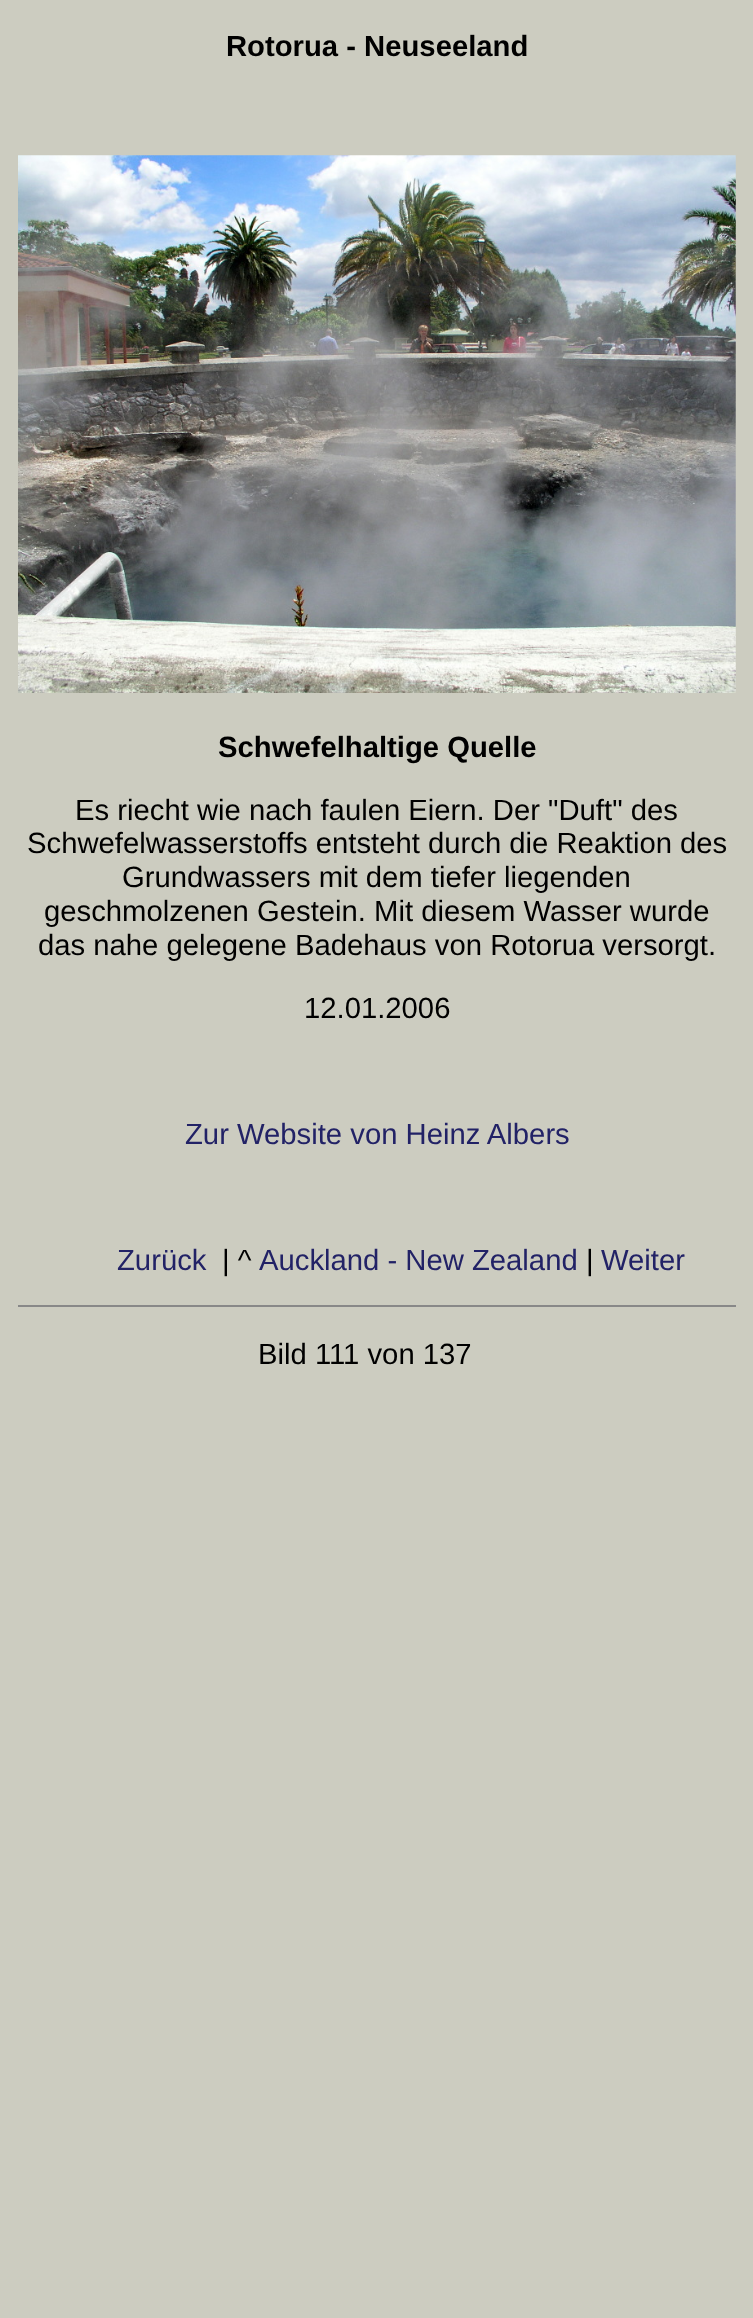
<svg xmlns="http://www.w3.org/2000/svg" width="753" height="2318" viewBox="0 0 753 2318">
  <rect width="100%" height="100%" fill="rgb(204,204,192)"/>
  <text x="226" y="56" font-family="Liberation Sans" font-size="29.25" font-weight="bold" fill="rgb(0,0,0)">Rotorua - Neuseeland</text>
  <image x="18" y="155" width="718" height="538" href="pic1.png"/>
  <text x="218" y="757" font-family="Liberation Sans" font-size="29.25" font-weight="bold" fill="rgb(0,0,0)">Schwefelhaltige Quelle</text>
  <g font-family="Liberation Sans" font-size="29.25" fill="rgb(0,0,0)">
    <text x="75" y="820">Es riecht wie nach faulen Eiern. Der "Duft" des</text>
    <text x="27" y="853">Schwefelwasserstoffs entsteht durch die Reaktion des</text>
    <text x="122" y="887">Grundwassers mit dem tiefer liegenden</text>
    <text x="44" y="921">geschmolzenen Gestein. Mit diesem Wasser wurde</text>
    <text x="38" y="955">das nahe gelegene Badehaus von Rotorua versorgt.</text>
    <text x="304" y="1018">12.01.2006</text>
  </g>
  <g font-family="Liberation Sans" font-size="29.25" fill="rgb(34,34,102)">
    <text x="185" y="1144">Zur Website von Heinz Albers</text>
    <text x="117" y="1270">Zurück</text>
  </g>
  <text x="222" y="1270" font-family="Liberation Sans" font-size="29.25" fill="rgb(0,0,0)">| ^</text>
  <text x="259" y="1270" font-family="Liberation Sans" font-size="29.25" fill="rgb(34,34,102)">Auckland - New Zealand</text>
  <text x="586" y="1270" font-family="Liberation Sans" font-size="29.25" fill="rgb(0,0,0)">|</text>
  <text x="601" y="1270" font-family="Liberation Sans" font-size="29.25" fill="rgb(34,34,102)">Weiter</text>
  <rect x="18" y="1305" width="718" height="2" fill="rgb(136,136,136)"/>
  <text x="258" y="1364" font-family="Liberation Sans" font-size="29.25" fill="rgb(0,0,0)">Bild 111 von 137</text>
</svg>
